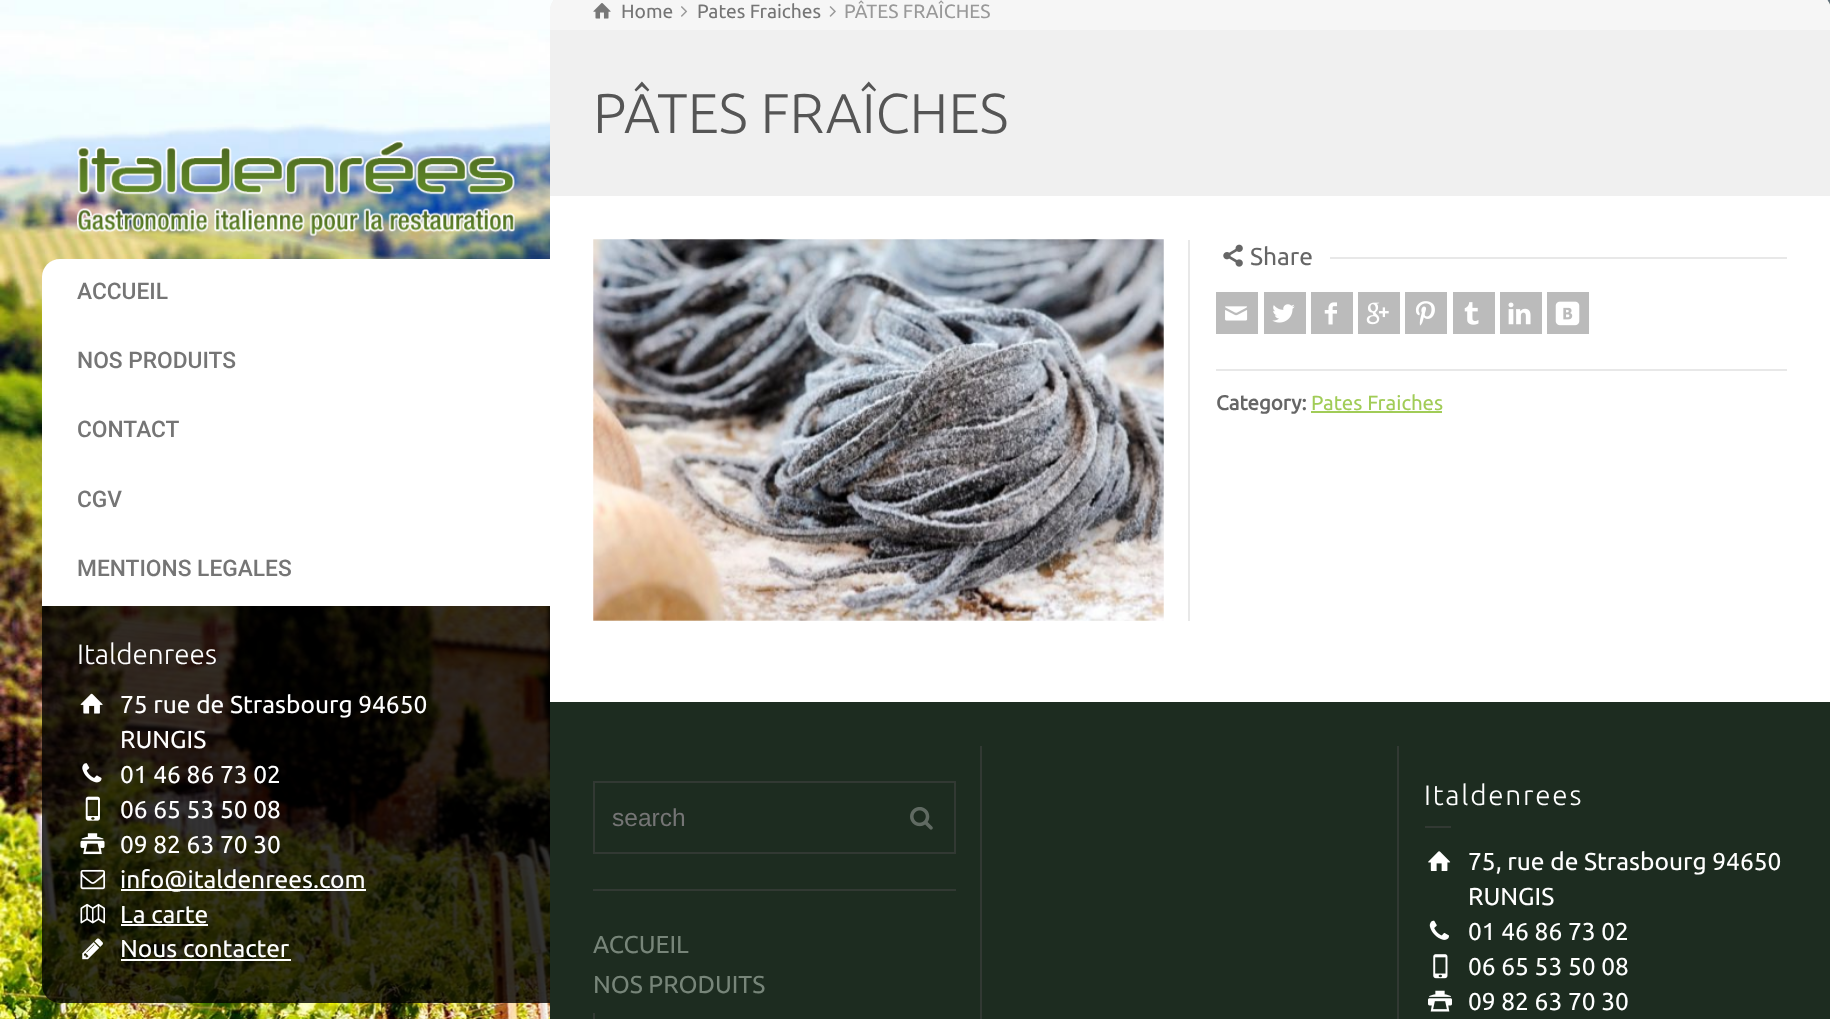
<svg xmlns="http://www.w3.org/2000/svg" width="1830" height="1019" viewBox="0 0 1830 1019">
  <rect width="100%" height="100%" fill="rgb(255,255,255)"/>
  <image x="0" y="0" width="550" height="1019" href="pic1.png"/>
  <image x="77" y="140" width="438" height="97" href="pic2.png"/>
  <path d="M60 259H550V326H42V277C42 267 50 259 60 259Z" fill="rgb(255,255,255)"/>
  <rect x="42" y="326" width="508" height="280" fill="rgb(255,255,255)"/>
  <g font-family="Roboto" font-size="22.75" font-weight="500" fill="rgb(117,117,117)">
    <text x="77" y="299">ACCUEIL</text>
    <text x="77" y="368">NOS PRODUITS</text>
    <text x="77" y="437">CONTACT</text>
    <text x="77" y="507">CGV</text>
    <text x="77" y="576">MENTIONS LEGALES</text>
  </g>
  <path d="M42 606H550V1003H60C50 1003 42 995 42 985Z" fill="rgba(0,0,0,0.8)"/>
  <text x="77" y="664" font-family="Ubuntu" font-size="28" font-weight="300" fill="rgb(255,255,255)">Italdenrees</text>
  <image x="80" y="693" width="23" height="21" href="pic3.png"/>
  <g font-family="Ubuntu" font-size="24.5" fill="rgb(255,255,255)">
    <text>
      <tspan x="120" y="713">75 rue de Strasbourg 94650</tspan>
      <tspan x="120" y="748">RUNGIS</tspan>
    </text>
  </g>
  <image x="82" y="763" width="20" height="20" href="pic4.png"/>
  <text x="120" y="783" font-family="Ubuntu" font-size="24.5" fill="rgb(255,255,255)">01 46 86 73 02</text>
  <image x="85" y="796" width="15" height="25" href="pic5.png"/>
  <text x="120" y="818" font-family="Ubuntu" font-size="24.5" fill="rgb(255,255,255)">06 65 53 50 08</text>
  <image x="80" y="833" width="25" height="22" href="pic6.png"/>
  <text x="120" y="853" font-family="Ubuntu" font-size="24.5" fill="rgb(255,255,255)">09 82 63 70 30</text>
  <image x="80" y="869" width="26" height="21" href="pic7.png"/>
  <rect x="121" y="889" width="245" height="2" fill="rgb(255,255,255)"/>
  <text x="120" y="888" font-family="Ubuntu" font-size="24.5" fill="rgb(255,255,255)">info@italdenrees.com</text>
  <image x="80" y="903" width="25" height="21" href="pic8.png"/>
  <text x="120" y="923" font-family="Ubuntu" font-size="24.5" fill="rgb(255,255,255)">La carte</text>
  <rect x="121" y="924" width="87" height="2" fill="rgb(255,255,255)"/>
  <image x="82" y="938" width="21" height="22" href="pic9.png"/>
  <text x="120" y="957" font-family="Ubuntu" font-size="24.5" fill="rgb(255,255,255)">Nous contacter</text>
  <rect x="121" y="959" width="170" height="2" fill="rgb(255,255,255)"/>
  <image x="550" y="0" width="1280" height="11" href="pic10.png"/>
  <path d="M568-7H1813C1823-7 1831 1 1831 11V266H550V11C550 1 558-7 568-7Z" fill="rgb(240,240,240)"/>
  <path d="M568-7H1813C1823-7 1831 1 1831 11V30H550V11C550 1 558-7 568-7Z" fill="rgb(246,246,246)"/>
  <image x="593" y="3" width="18" height="16" href="pic11.png"/>
  <text x="621" y="18" font-family="Ubuntu" font-size="19.25" fill="rgb(117,117,117)">Home</text>
  <image x="681" y="6" width="7" height="11" href="pic12.png"/>
  <text x="697" y="18" font-family="Ubuntu" font-size="19.25" fill="rgb(117,117,117)">Pates Fraiches</text>
  <image x="829" y="6" width="7" height="11" href="pic13.png"/>
  <text x="844" y="18" font-family="Ubuntu" font-size="19.25" fill="rgb(153,153,153)">PÂTES FRAÎCHES</text>
  <text x="593" y="133" font-family="Ubuntu" font-size="56" font-weight="300" fill="rgb(85,85,85)">PÂTES FRAÎCHES</text>
  <rect x="550" y="196" width="1280" height="70" fill="rgb(255,255,255)"/>
  <image x="593" y="239" width="571" height="382" href="pic14.png"/>
  <rect x="1188" y="240" width="2" height="381" fill="rgb(232,232,232)"/>
  <image x="1223" y="244" width="20" height="23" href="pic15.png"/>
  <text x="1250" y="265" font-family="Ubuntu" font-size="24.5" fill="rgb(102,102,102)">Share</text>
  <rect x="1330" y="257" width="457" height="2" fill="rgb(232,232,232)"/>
  <rect x="1216" y="292" width="42" height="42" fill="rgb(187,187,187)"/>
  <image x="1225" y="306" width="23" height="15" href="pic16.png"/>
  <rect x="1264" y="292" width="42" height="42" fill="rgb(187,187,187)"/>
  <image x="1272" y="304" width="23" height="19" href="pic17.png"/>
  <rect x="1311" y="292" width="42" height="42" fill="rgb(187,187,187)"/>
  <image x="1324" y="302" width="13" height="23" href="pic18.png"/>
  <rect x="1358" y="292" width="42" height="42" fill="rgb(187,187,187)"/>
  <image x="1366" y="302" width="23" height="23" href="pic19.png"/>
  <rect x="1405" y="292" width="42" height="42" fill="rgb(187,187,187)"/>
  <image x="1415" y="301" width="20" height="25" href="pic20.png"/>
  <rect x="1453" y="292" width="42" height="42" fill="rgb(187,187,187)"/>
  <image x="1464" y="302" width="15" height="23" href="pic21.png"/>
  <rect x="1500" y="292" width="42" height="42" fill="rgb(187,187,187)"/>
  <image x="1508" y="302" width="23" height="23" href="pic22.png"/>
  <rect x="1547" y="292" width="42" height="42" fill="rgb(187,187,187)"/>
  <image x="1555" y="301" width="25" height="25" href="pic23.png"/>
  <rect x="1216" y="369" width="571" height="2" fill="rgb(232,232,232)"/>
  <text x="1216" y="410" font-family="Ubuntu" font-size="20.5" font-weight="bold" fill="rgb(102,102,102)">Category:</text>
  <text x="1311" y="410" font-family="Ubuntu" font-size="20.5" fill="rgb(161,204,87)">Pates Fraiches</text>
  <rect x="1311" y="411" width="131" height="2" fill="rgb(161,204,87)"/>
  <rect x="550" y="702" width="1280" height="317" fill="rgb(29,44,32)"/>
  <rect x="594" y="782" width="361" height="71" fill="none" stroke="rgb(50,57,51)" stroke-width="2"/>
  <text x="612" y="826" font-family="Liberation Sans" font-size="24.5" fill="rgb(117,117,117)">search</text>
  <image x="910" y="807" width="23" height="23" href="pic24.png"/>
  <rect x="593" y="889" width="363" height="2" fill="rgb(50,57,51)"/>
  <g font-family="Ubuntu" font-size="24.5" fill="rgb(119,133,121)">
    <text>
      <tspan x="593" y="953">ACCUEIL</tspan>
      <tspan x="593" y="993">NOS PRODUITS</tspan>
    </text>
  </g>
  <rect x="593" y="1013" width="2" height="6" fill="rgb(50,57,51)"/>
  <rect x="980" y="746" width="2" height="273" fill="rgb(50,57,51)"/>
  <rect x="1397" y="746" width="2" height="273" fill="rgb(50,57,51)"/>
  <text x="1424" y="805" font-family="Ubuntu" font-size="28" font-weight="300" letter-spacing="1.75" fill="rgb(255,255,255)">Italdenrees</text>
  <rect x="1425" y="826" width="26" height="2" fill="rgb(50,57,51)"/>
  <image x="1428" y="851" width="23" height="20" href="pic25.png"/>
  <g font-family="Ubuntu" font-size="24.5" fill="rgb(255,255,255)">
    <text>
      <tspan x="1468" y="870">75, rue de Strasbourg 94650</tspan>
      <tspan x="1468" y="905">RUNGIS</tspan>
    </text>
  </g>
  <image x="1429" y="920" width="20" height="20" href="pic26.png"/>
  <text x="1468" y="940" font-family="Ubuntu" font-size="24.5" fill="rgb(255,255,255)">01 46 86 73 02</text>
  <image x="1433" y="954" width="15" height="25" href="pic27.png"/>
  <text x="1468" y="975" font-family="Ubuntu" font-size="24.5" fill="rgb(255,255,255)">06 65 53 50 08</text>
  <image x="1428" y="990" width="24" height="22" href="pic28.png"/>
  <text x="1468" y="1010" font-family="Ubuntu" font-size="24.5" fill="rgb(255,255,255)">09 82 63 70 30</text>
</svg>
